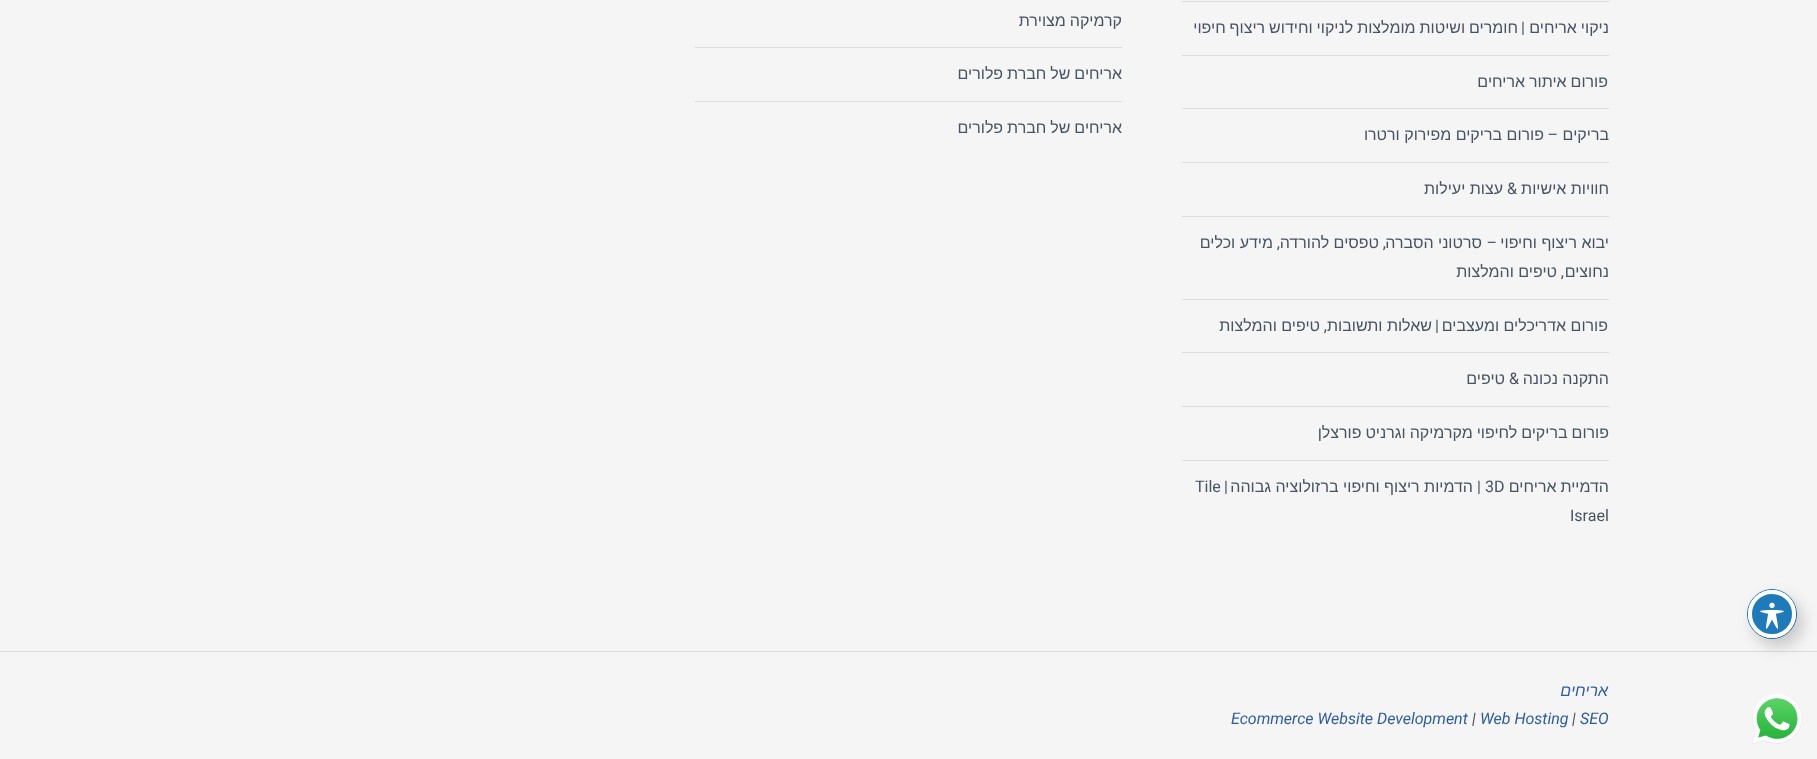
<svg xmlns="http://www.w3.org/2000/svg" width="1817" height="759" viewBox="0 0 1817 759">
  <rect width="100%" height="100%" fill="rgb(245,245,245)"/>
  <circle cx="1772" cy="614" r="24.5" fill="none" stroke="rgb(30,122,185)"/>
  <rect x="0" y="651" width="1817" height="1" fill="rgb(221,221,221)"/>
  <rect x="1754" y="598" width="48" height="48" rx="24" fill="rgba(0,0,0,0.2)" filter="blur(8px)"/>
  <circle cx="1772" cy="614" r="22" fill="rgb(30,122,185)" stroke="rgb(255,255,255)" stroke-width="4"/>
  <image x="1760" y="602" width="24" height="27" href="pic1.png"/>
  <rect x="1182" y="1" width="427" height="1" fill="rgb(221,221,221)"/>
  <rect x="1182" y="55" width="427" height="1" fill="rgb(221,221,221)"/>
  <text x="1609" y="33" word-spacing="-0.5" font-family="Liberation Sans" font-size="16" direction="rtl" fill="rgb(70,83,98)">ניקוי אריחים</text>
  <text x="1525" y="33" font-family="Roboto" font-size="16" direction="rtl" fill="rgb(70,83,98)">|</text>
  <text x="1518" y="33" word-spacing="-0.5" font-family="Liberation Sans" font-size="16" direction="rtl" fill="rgb(70,83,98)">חומרים ושיטות מומלצות לניקוי וחידוש ריצוף חיפוי</text>
  <rect x="1182" y="108" width="427" height="1" fill="rgb(221,221,221)"/>
  <text x="1608" y="87" word-spacing="-0.5" font-family="Liberation Sans" font-size="16" direction="rtl" fill="rgb(70,83,98)">פורום איתור אריחים</text>
  <rect x="1182" y="162" width="427" height="1" fill="rgb(221,221,221)"/>
  <text x="1609" y="140" font-family="Liberation Sans" font-size="16" direction="rtl" fill="rgb(70,83,98)">בריקים</text>
  <text x="1558" y="140" font-family="Roboto" font-size="16" direction="rtl" fill="rgb(70,83,98)">–</text>
  <text x="1544" y="140" font-family="Liberation Sans" font-size="16" direction="rtl" fill="rgb(70,83,98)">פורום בריקים מפירוק ורטרו</text>
  <rect x="1182" y="216" width="427" height="1" fill="rgb(221,221,221)"/>
  <text x="1609" y="194" font-family="Liberation Sans" font-size="16" direction="rtl" fill="rgb(70,83,98)">חוויות אישיות</text>
  <text x="1517" y="194" font-family="Roboto" font-size="16" direction="rtl" fill="rgb(70,83,98)">&amp;</text>
  <text x="1503" y="194" font-family="Liberation Sans" font-size="16" direction="rtl" fill="rgb(70,83,98)">עצות יעילות</text>
  <rect x="1182" y="299" width="427" height="1" fill="rgb(221,221,221)"/>
  <text x="1609" y="248" font-family="Liberation Sans" font-size="16" direction="rtl" fill="rgb(70,83,98)">יבוא ריצוף וחיפוי</text>
  <text x="1497" y="248" font-family="Roboto" font-size="16" direction="rtl" fill="rgb(70,83,98)">–</text>
  <g font-family="Liberation Sans" font-size="16" direction="rtl" fill="rgb(70,83,98)">
    <text x="1482" y="248">סרטוני הסברה</text>
    <text x="1379" y="248">טפסים להורדה</text>
    <text x="1273" y="248">מידע וכלים</text>
  </g>
  <g font-family="Roboto" font-size="16" direction="rtl" fill="rgb(70,83,98)">
    <text x="1386" y="248">,</text>
    <text x="1280" y="248">,</text>
  </g>
  <g font-family="Liberation Sans" font-size="16" direction="rtl" fill="rgb(70,83,98)">
    <text x="1609" y="277">נחוצים</text>
    <text x="1557" y="277">טיפים והמלצות</text>
  </g>
  <text x="1564" y="277" font-family="Roboto" font-size="16" direction="rtl" fill="rgb(70,83,98)">,</text>
  <rect x="1182" y="352" width="427" height="1" fill="rgb(221,221,221)"/>
  <text x="1608" y="331" font-family="Liberation Sans" font-size="16" direction="rtl" fill="rgb(70,83,98)">פורום אדריכלים ומעצבים</text>
  <text x="1439" y="331" font-family="Roboto" font-size="16" direction="rtl" fill="rgb(70,83,98)">|</text>
  <text x="1432" y="331" font-family="Liberation Sans" font-size="16" direction="rtl" fill="rgb(70,83,98)">שאלות ותשובות</text>
  <text x="1327" y="331" font-family="Roboto" font-size="16" direction="rtl" fill="rgb(70,83,98)">,</text>
  <text x="1320" y="331" font-family="Liberation Sans" font-size="16" direction="rtl" fill="rgb(70,83,98)">טיפים והמלצות</text>
  <rect x="1182" y="406" width="427" height="1" fill="rgb(221,221,221)"/>
  <text x="1609" y="384" font-family="Liberation Sans" font-size="16" direction="rtl" fill="rgb(70,83,98)">התקנה נכונה</text>
  <text x="1519" y="384" font-family="Roboto" font-size="16" direction="rtl" fill="rgb(70,83,98)">&amp;</text>
  <text x="1505" y="384" font-family="Liberation Sans" font-size="16" direction="rtl" fill="rgb(70,83,98)">טיפים</text>
  <rect x="1182" y="460" width="427" height="1" fill="rgb(221,221,221)"/>
  <g font-family="Liberation Sans" font-size="16" direction="rtl" fill="rgb(70,83,98)">
    <text x="1609" y="438" word-spacing="-0.5">פורום בריקים לחיפוי מקרמיקה וגרניט פורצלן</text>
    <text x="1609" y="492" word-spacing="-0.5">הדמיית אריחים</text>
  </g>
  <text x="1485" y="492" font-family="Roboto" font-size="16" fill="rgb(70,83,98)">3D</text>
  <text x="1481" y="492" font-family="Roboto" font-size="16" direction="rtl" fill="rgb(70,83,98)">|</text>
  <text x="1473" y="492" font-family="Liberation Sans" font-size="16" direction="rtl" fill="rgb(70,83,98)">הדמיות ריצוף וחיפוי ברזולוציה גבוהה</text>
  <text x="1228" y="492" font-family="Roboto" font-size="16" direction="rtl" fill="rgb(70,83,98)">|</text>
  <g font-family="Roboto" font-size="16" fill="rgb(70,83,98)">
    <text x="1195" y="492">Tile</text>
    <text x="1570" y="521">Israel</text>
  </g>
  <rect x="695" y="47" width="427" height="1" fill="rgb(221,221,221)"/>
  <text x="1122" y="26" word-spacing="-0.5" font-family="Liberation Sans" font-size="16" direction="rtl" fill="rgb(70,83,98)">קרמיקה מצוירת</text>
  <rect x="695" y="101" width="427" height="1" fill="rgb(221,221,221)"/>
  <g font-family="Liberation Sans" font-size="16" direction="rtl" fill="rgb(70,83,98)">
    <text x="1122" y="79" word-spacing="-0.5">אריחים של חברת פלורים</text>
    <text x="1122" y="133" word-spacing="-0.5">אריחים של חברת פלורים</text>
  </g>
  <text x="1608" y="696" font-family="Liberation Sans" font-size="16" font-style="italic" direction="rtl" fill="rgb(46,93,159)">אריחים</text>
  <text x="1580" y="724" font-family="Roboto" font-size="16" font-style="italic" fill="rgb(46,93,159)">SEO</text>
  <text x="1572" y="724" font-family="Roboto" font-size="16" font-style="italic" fill="rgb(70,83,98)">|</text>
  <text x="1480" y="724" font-family="Roboto" font-size="16" font-style="italic" fill="rgb(46,93,159)">Web Hosting</text>
  <text x="1472" y="724" font-family="Roboto" font-size="16" font-style="italic" fill="rgb(70,83,98)">|</text>
  <text x="1231" y="724" font-family="Roboto" font-size="16" font-style="italic" fill="rgb(46,93,159)">Ecommerce Website Development</text>
  <image x="1752" y="694" width="50" height="50" href="pic2.png"/>
</svg>
